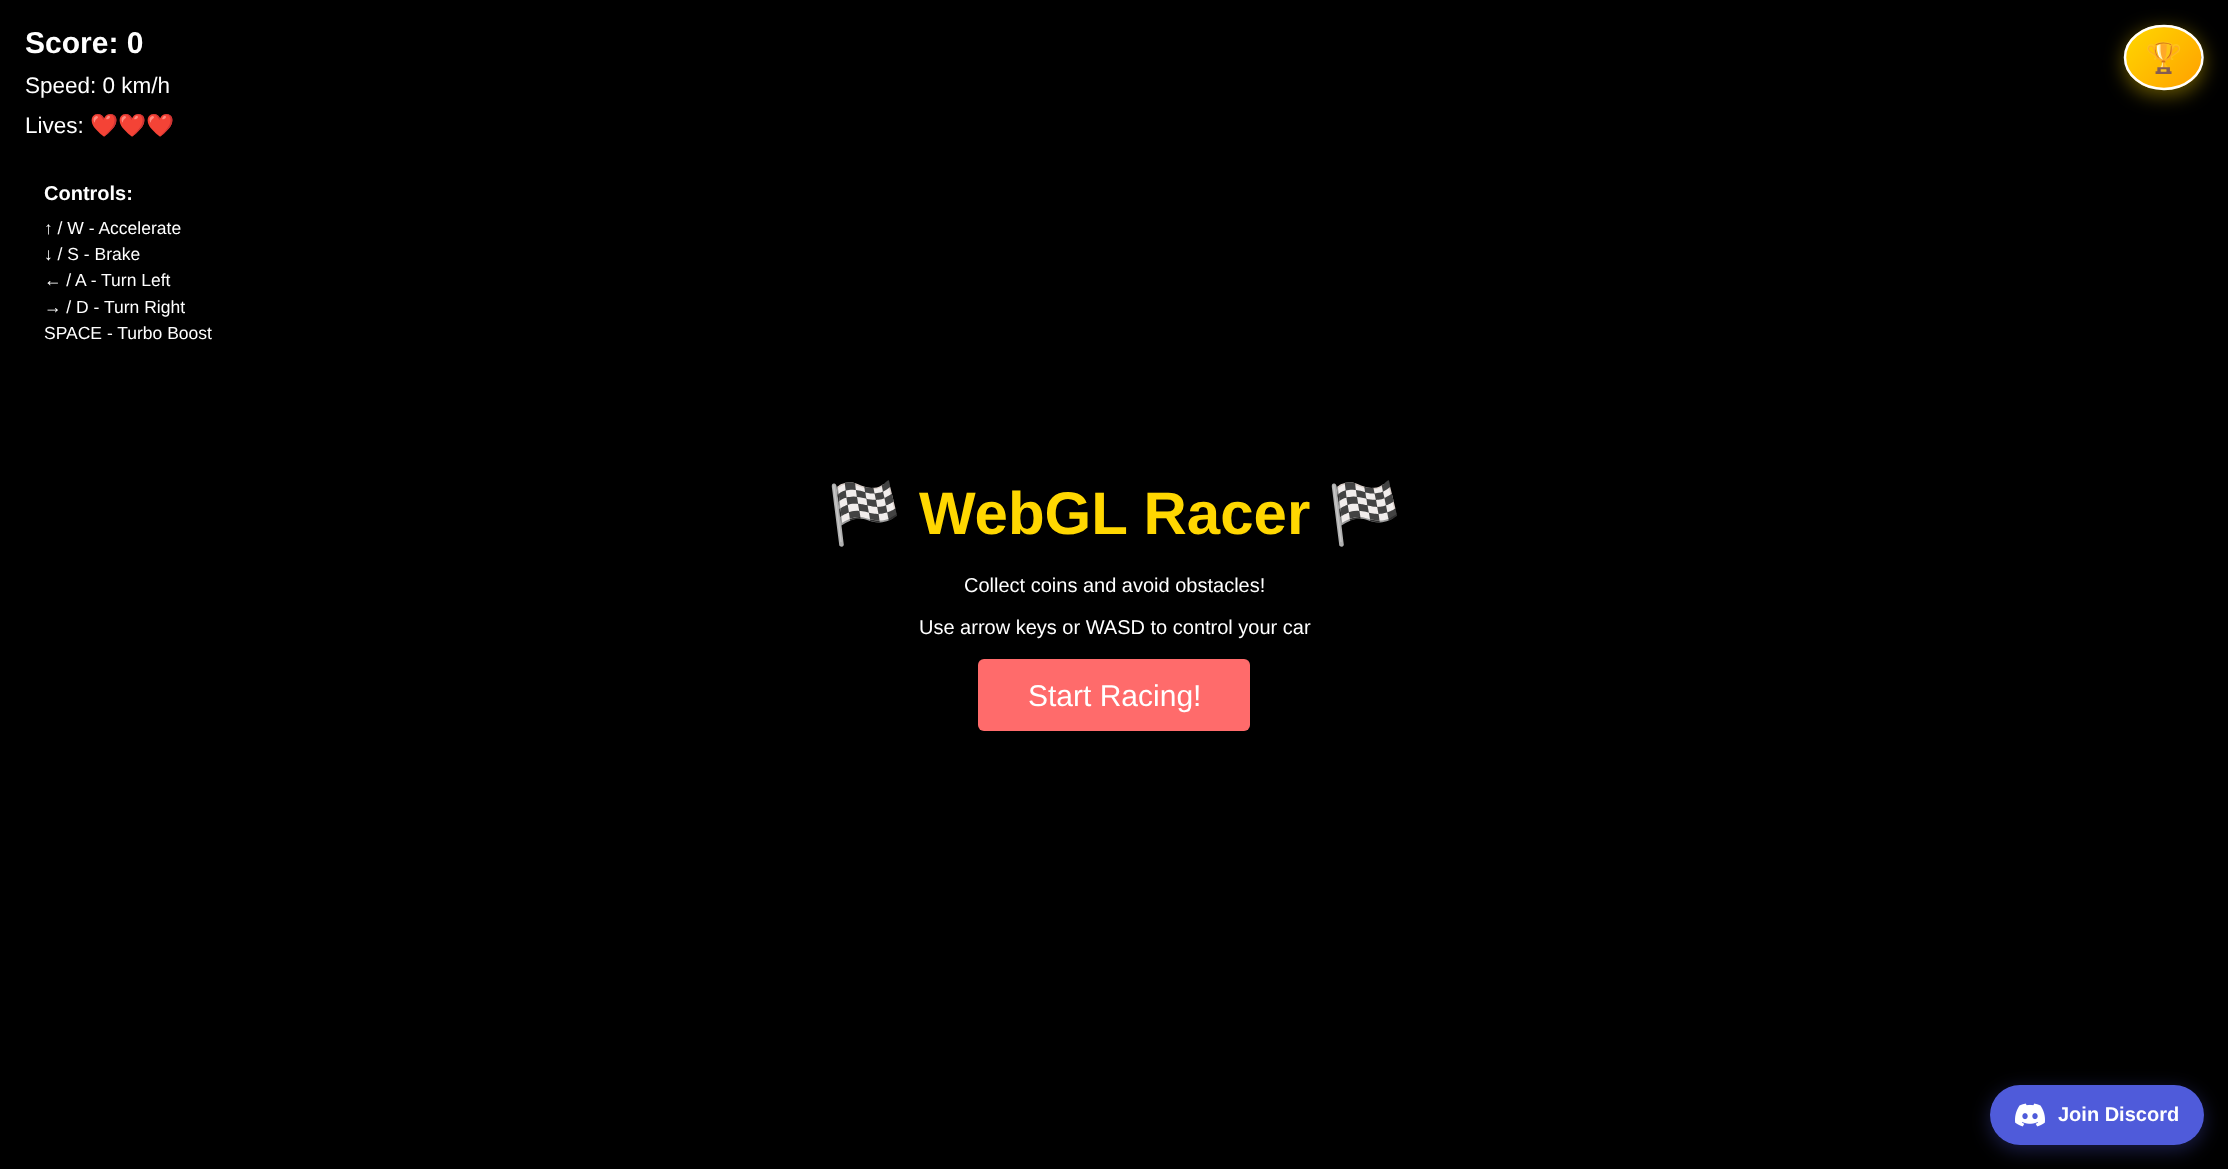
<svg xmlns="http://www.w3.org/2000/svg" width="2228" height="1169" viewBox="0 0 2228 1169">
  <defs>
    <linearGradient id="g1" gradientUnits="userSpaceOnUse" x1="2130" y1="-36" x2="2198" y2="31"><stop offset="0" stop-color="rgb(255,215,0)"/><stop offset="1" stop-color="rgb(255,160,0)"/></linearGradient>
    <linearGradient id="g2" gradientUnits="userSpaceOnUse" x1="2130" y1="24" x2="2198" y2="91"><stop offset="0" stop-color="rgb(255,215,0)"/><stop offset="1" stop-color="rgb(255,160,0)"/></linearGradient>
    <clipPath id="clip1"><path d="M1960 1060H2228V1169H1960ZM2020 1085H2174C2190.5 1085 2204 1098.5 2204 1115C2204 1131.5 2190.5 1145 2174 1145H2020C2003.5 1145 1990 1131.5 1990 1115C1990 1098.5 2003.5 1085 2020 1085Z" clip-rule="evenodd"/></clipPath>
  </defs>
  <rect width="100%" height="100%" fill="rgb(0,0,0)"/>
  <text x="25" y="53" font-family="Liberation Sans" font-size="30" font-weight="bold" fill="rgb(255,255,255)">Score: 0</text>
  <g font-family="Liberation Sans" font-size="22.5" fill="rgb(255,255,255)">
    <text>
      <tspan x="25" y="93">Speed: 0 km/h</tspan>
      <tspan x="25" y="133">Lives:</tspan>
    </text>
  </g>
  <text x="90" y="133" font-family="Noto Color Emoji" font-size="22.5" fill="rgb(255,255,255)">❤️❤️❤️</text>
  <text x="44" y="200" font-family="Liberation Sans" font-size="20" font-weight="bold" fill="rgb(255,255,255)">Controls:</text>
  <g font-family="Liberation Sans" font-size="17.5" fill="rgb(255,255,255)">
    <text>
      <tspan x="44" y="234">↑ / W - Accelerate</tspan>
      <tspan x="44" y="260">↓ / S - Brake</tspan>
      <tspan x="44" y="286">← / A - Turn Left</tspan>
      <tspan x="44" y="313">→ / D - Turn Right</tspan>
      <tspan x="44" y="339">SPACE - Turbo Boost</tspan>
    </text>
  </g>
  <rect x="2124" y="30" width="80" height="65" rx="32.5" fill="rgba(255,215,0,0.4)" filter="blur(9.5px)"/>
  <path d="M2164 25C2170 25 2175.5 26 2180.5 28H2147C2152 26 2157.5 25 2164 25Z" fill="url(#g1)"/>
  <path d="M2126 47C2130 38 2137 32 2147 28H2181C2190 32 2197 38 2201 46V69C2197 78 2188 85 2178 88H2150C2139 85 2130 77 2126 68Z" fill="url(#g2)"/>
  <path d="M2164 26C2185 26 2202.5 40 2202.5 57.5C2202.5 75 2185 89 2164 89C2142.5 89 2125 75 2125 57.5C2125 40 2142.5 26 2164 26Z" fill="none" stroke="rgb(255,255,255)" stroke-width="2.5"/>
  <text x="2145" y="68" font-family="Noto Color Emoji" font-size="30" fill="rgb(255,255,255)">🏆</text>
  <text x="827" y="534" font-family="Noto Color Emoji" font-size="60" font-weight="bold" fill="rgb(255,215,0)">🏁</text>
  <text x="919" y="534" font-family="Liberation Sans" font-size="60" font-weight="bold" fill="rgb(255,215,0)">WebGL Racer</text>
  <text x="1327" y="534" font-family="Noto Color Emoji" font-size="60" font-weight="bold" fill="rgb(255,215,0)">🏁</text>
  <g font-family="Liberation Sans" font-size="20" fill="rgb(255,255,255)">
    <text x="964" y="592">Collect coins and avoid obstacles!</text>
    <text x="919" y="634">Use arrow keys or WASD to control your car</text>
  </g>
  <rect x="978" y="659" width="272" height="72" rx="6" fill="rgb(255,107,107)"/>
  <text x="1028" y="706" font-family="Liberation Sans" font-size="30" fill="rgb(255,255,255)">Start Racing!</text>
  <g clip-path="url(#clip1)">
    <rect x="1990" y="1090" width="214" height="60" rx="30" fill="rgba(88,101,242,0.3)" filter="blur(9.5px)"/>
  </g>
  <rect x="1990" y="1085" width="214" height="60" rx="30" fill="rgba(88,101,242,0.9)"/>
  <image x="2015" y="1103" width="30" height="24" href="pic1.png"/>
  <text x="2058" y="1121" font-family="Liberation Sans" font-size="20" font-weight="bold" fill="rgb(255,255,255)">Join Discord</text>
</svg>
